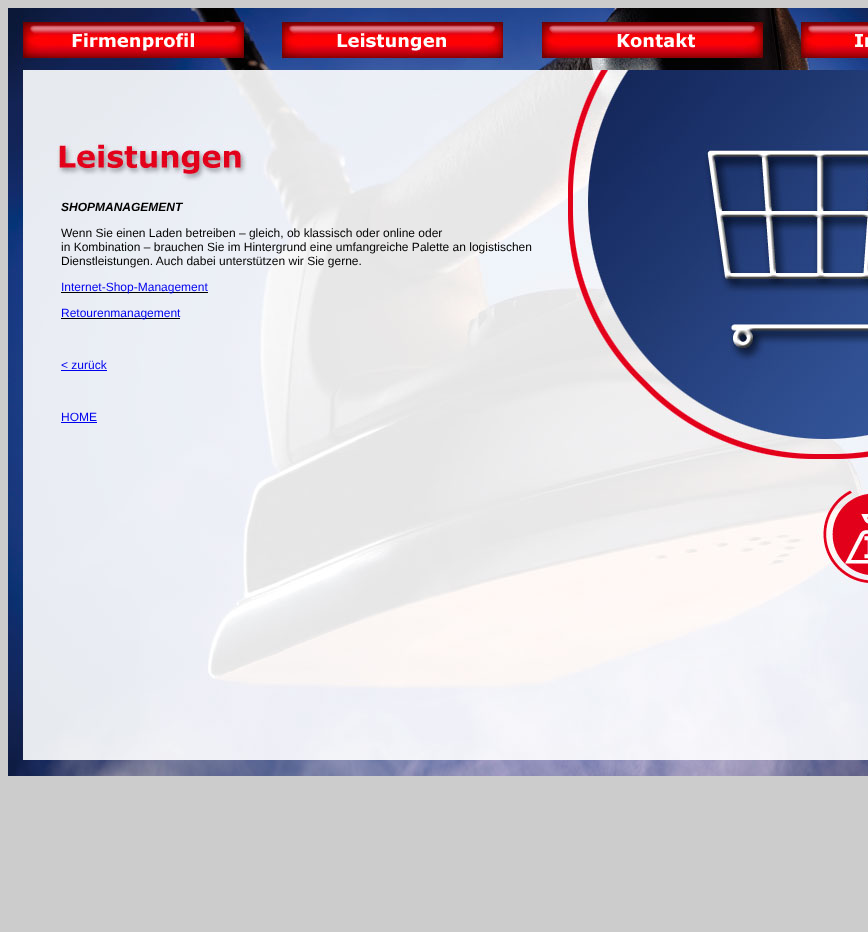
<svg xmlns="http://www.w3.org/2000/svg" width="868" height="932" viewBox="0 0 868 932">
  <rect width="100%" height="100%" fill="rgb(204,204,204)"/>
  <image x="8" y="8" width="860" height="768" href="pic1.png"/>
  <text x="61" y="211" font-family="Liberation Sans" font-size="12" font-weight="bold" font-style="italic" fill="rgb(0,0,0)">SHOPMANAGEMENT</text>
  <g font-family="Liberation Sans" font-size="12" fill="rgb(0,0,0)">
    <text>
      <tspan x="61" y="237">Wenn Sie einen Laden betreiben – gleich, ob klassisch oder online oder</tspan>
      <tspan x="61" y="251">in Kombination – brauchen Sie im Hintergrund eine umfangreiche Palette an logistischen</tspan>
      <tspan x="61" y="265">Dienstleistungen. Auch dabei unterstützen wir Sie gerne.</tspan>
    </text>
  </g>
  <rect x="61" y="292" width="147" height="1" fill="rgb(0,0,0)"/>
  <text x="61" y="291" font-family="Liberation Sans" font-size="12" fill="rgb(0,0,238)">Internet-Shop-Management</text>
  <rect x="61" y="318" width="119" height="1" fill="rgb(0,0,0)"/>
  <g font-family="Liberation Sans" font-size="12" fill="rgb(0,0,238)">
    <text x="61" y="317">Retourenmanagement</text>
    <text x="61" y="369">&lt; zurück</text>
  </g>
  <rect x="61" y="370" width="46" height="1" fill="rgb(0,0,238)"/>
  <text x="61" y="421" font-family="Liberation Sans" font-size="12" fill="rgb(0,0,238)">HOME</text>
  <rect x="61" y="422" width="36" height="1" fill="rgb(0,0,238)"/>
</svg>
